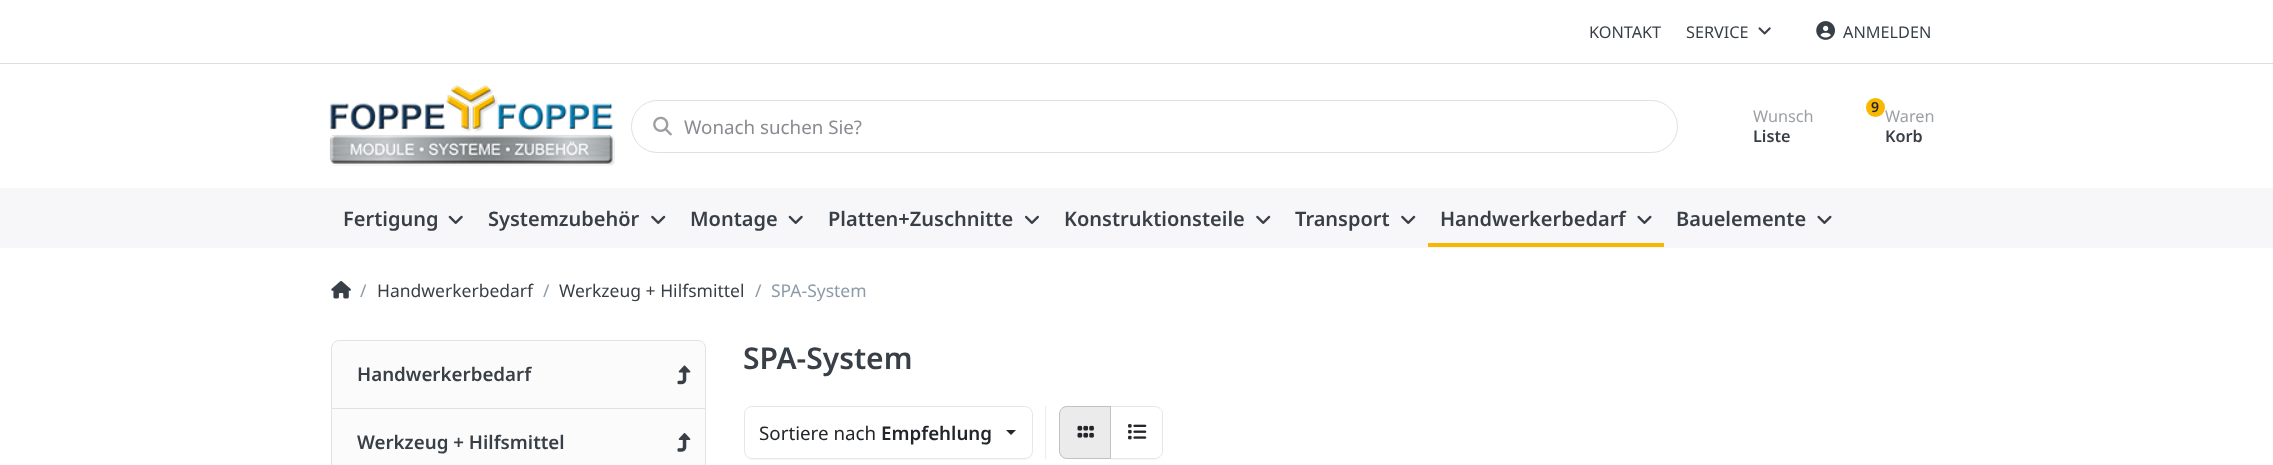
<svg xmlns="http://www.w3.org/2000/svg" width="2273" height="465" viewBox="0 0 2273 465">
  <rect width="100%" height="100%" fill="rgb(255,255,255)"/>
  <rect x="0" y="63" width="2273" height="1" fill="rgb(221,221,221)"/>
  <g font-family="Noto Sans" font-size="16.25" fill="rgb(57,63,70)">
    <text x="1589" y="38">KONTAKT</text>
    <text x="1686" y="38">SERVICE</text>
  </g>
  <image x="1758" y="27" width="13" height="8" href="pic1.png"/>
  <image x="1816" y="21" width="19" height="19" href="pic2.png"/>
  <text x="1843" y="38" font-family="Noto Sans" font-size="16.25" fill="rgb(57,63,70)">ANMELDEN</text>
  <image x="329" y="85" width="286" height="81" href="pic3.png"/>
  <rect x="631.5" y="100.5" width="1046" height="52" rx="26" fill="none" stroke="rgb(224,224,224)"/>
  <image x="653" y="116" width="19" height="20" href="pic4.png"/>
  <text x="684" y="134" font-family="Noto Sans" font-size="18.75" fill="rgb(136,140,144)">Wonach suchen Sie?</text>
  <text x="1753" y="122" font-family="Noto Sans" font-size="16.25" fill="rgb(156,159,163)">Wunsch</text>
  <text x="1753" y="142" font-family="Noto Sans" font-size="16.25" font-weight="600" fill="rgb(57,63,70)">Liste</text>
  <rect x="1864" y="96" width="22" height="23" rx="11" fill="rgb(250,183,1)"/>
  <text x="1871" y="112" font-family="Noto Sans" font-size="14" font-weight="600" fill="rgb(34,38,42)">9</text>
  <circle cx="1875.5" cy="107.5" r="11" fill="none" stroke="rgb(255,255,255)" stroke-width="3"/>
  <text x="1885" y="122" font-family="Noto Sans" font-size="16.25" fill="rgb(156,159,163)">Waren</text>
  <text x="1885" y="142" font-family="Noto Sans" font-size="16.25" font-weight="600" fill="rgb(57,63,70)">Korb</text>
  <rect x="0" y="188" width="2273" height="60" fill="rgb(247,247,249)"/>
  <text x="343" y="226" font-family="Noto Sans" font-size="20" font-weight="600" fill="rgb(57,63,70)">Fertigung</text>
  <image x="448" y="215" width="15" height="9" href="pic5.png"/>
  <text x="488" y="226" font-family="Noto Sans" font-size="20" font-weight="600" fill="rgb(57,63,70)">Systemzubehör</text>
  <image x="651" y="215" width="15" height="9" href="pic6.png"/>
  <text x="690" y="226" font-family="Noto Sans" font-size="20" font-weight="600" fill="rgb(57,63,70)">Montage</text>
  <image x="788" y="215" width="15" height="9" href="pic5.png"/>
  <text x="828" y="226" font-family="Noto Sans" font-size="20" font-weight="600" fill="rgb(57,63,70)">Platten+Zuschnitte</text>
  <image x="1025" y="215" width="14" height="9" href="pic7.png"/>
  <text x="1064" y="226" font-family="Noto Sans" font-size="20" font-weight="600" fill="rgb(57,63,70)">Konstruktionsteile</text>
  <image x="1256" y="215" width="15" height="9" href="pic6.png"/>
  <text x="1295" y="226" font-family="Noto Sans" font-size="20" font-weight="600" fill="rgb(57,63,70)">Transport</text>
  <image x="1401" y="215" width="15" height="9" href="pic6.png"/>
  <text x="1440" y="226" font-family="Noto Sans" font-size="20" font-weight="600" fill="rgb(57,63,70)">Handwerkerbedarf</text>
  <image x="1637" y="215" width="15" height="9" href="pic8.png"/>
  <rect x="1428" y="243" width="236" height="4" fill="rgb(250,183,1)"/>
  <text x="1676" y="226" font-family="Noto Sans" font-size="20" font-weight="600" fill="rgb(57,63,70)">Bauelemente</text>
  <image x="1817" y="215" width="15" height="9" href="pic8.png"/>
  <image x="331" y="281" width="20" height="18" href="pic9.png"/>
  <text x="360" y="297" font-family="Noto Sans" font-size="17.5" fill="rgb(141,155,169)">/</text>
  <text x="377" y="297" font-family="Noto Sans" font-size="17.5" fill="rgb(57,63,70)">Handwerkerbedarf</text>
  <text x="543" y="297" font-family="Noto Sans" font-size="17.5" fill="rgb(141,155,169)">/</text>
  <text x="559" y="297" font-family="Noto Sans" font-size="17.5" fill="rgb(57,63,70)">Werkzeug + Hilfsmittel</text>
  <g font-family="Noto Sans" font-size="17.5" fill="rgb(141,155,169)">
    <text x="755" y="297">/</text>
    <text x="771" y="297">SPA-System</text>
  </g>
  <path d="M339 340.5H698C702 340.5 705.5 344 705.5 348V408.5H331.5V348C331.5 344 335 340.5 339 340.5Z" fill="rgb(251,251,252)" stroke="rgb(226,226,227)"/>
  <text x="357" y="381" font-family="Noto Sans" font-size="18.75" font-weight="600" fill="rgb(57,63,70)">Handwerkerbedarf</text>
  <image x="677" y="365" width="14" height="20" href="pic10.png"/>
  <rect x="332" y="409" width="373" height="56" fill="rgb(251,251,252)"/>
  <path d="M706 409V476L705 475V409Z" fill="rgb(226,226,227)"/>
  <path d="M331 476V409H332V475Z" fill="rgb(226,226,227)"/>
  <text x="357" y="449" font-family="Noto Sans" font-size="18.75" font-weight="600" fill="rgb(57,63,70)">Werkzeug + Hilfsmittel</text>
  <image x="677" y="433" width="14" height="19" href="pic11.png"/>
  <text x="743" y="369" font-family="Noto Sans" font-size="30" font-weight="600" fill="rgb(57,63,70)">SPA-System</text>
  <path d="M744 454C745 457 748 460 752 460H1025C1029 460 1033 456 1033 452V416L1032 413V451C1032 455 1029 459 1025 459H751C748 459 745 457 744 454Z" fill="rgb(246,246,246)"/>
  <rect x="744" y="406" width="289" height="53" rx="8" fill="rgb(255,255,255)"/>
  <rect x="744.5" y="406.5" width="288" height="52" rx="7.5" fill="none" stroke="rgba(89,97,103,0.15)"/>
  <text x="759" y="440" font-family="Noto Sans" font-size="18.75" fill="rgb(34,38,42)">Sortiere nach</text>
  <text x="881" y="440" font-family="Noto Sans" font-size="18.75" font-weight="600" fill="rgb(34,38,42)">Empfehlung</text>
  <path d="M1006 430H1016L1011 435Z" fill="rgb(34,38,42)"/>
  <rect x="1045" y="406" width="1" height="53" fill="rgb(235,238,240)"/>
  <path d="M1110 459V460H1155C1159 460 1163 456 1163 452V416L1162 413V439C1162 445 1165 457 1157 459Z" fill="rgb(246,246,246)"/>
  <path d="M1110 406H1155C1159.5 406 1163 409.5 1163 414V451C1163 455.5 1159.5 459 1155 459H1110Z" fill="rgb(255,255,255)"/>
  <path d="M1110.5 406.5H1155C1159 406.5 1162.5 410 1162.5 414V451C1162.5 455 1159 458.5 1155 458.5H1110.5Z" fill="none" stroke="rgba(89,97,103,0.15)"/>
  <path d="M1067 406H1111V459H1067C1062.5 459 1059 455.5 1059 451V414C1059 409.5 1062.5 406 1067 406Z" fill="rgb(235,235,235)"/>
  <path d="M1067 406.5H1110.5V458.5H1067C1063 458.5 1059.5 455 1059.5 451V414C1059.5 410 1063 406.5 1067 406.5Z" fill="none" stroke="rgba(89,97,103,0.3)"/>
  <image x="1077" y="425" width="17" height="13" href="pic12.png"/>
  <image x="1128" y="424" width="19" height="16" href="pic13.png"/>
</svg>
